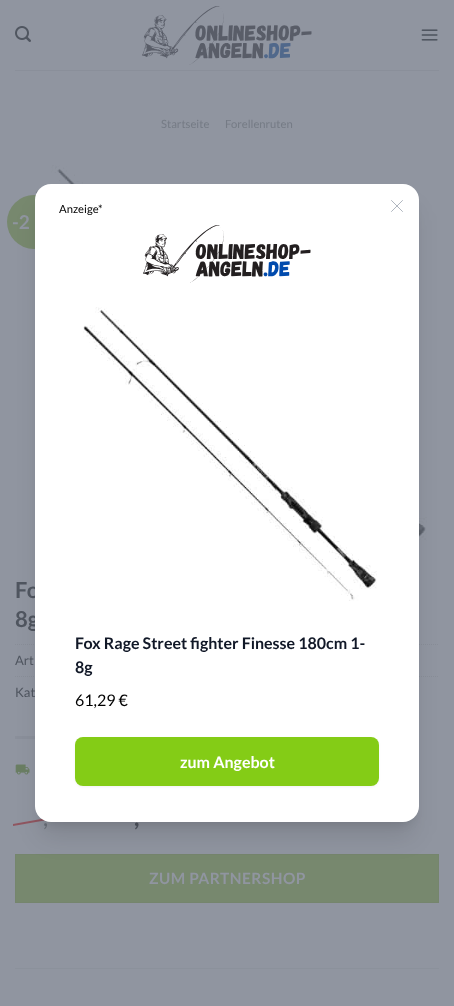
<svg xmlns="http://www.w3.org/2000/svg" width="454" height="1006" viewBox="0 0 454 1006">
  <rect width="100%" height="100%" fill="rgb(144,149,160)"/>
  <image x="15" y="26" width="16" height="16" href="pic1.png"/>
  <image x="142" y="6" width="170" height="59" href="pic2.png"/>
  <image x="421" y="29" width="17" height="12" href="pic3.png"/>
  <rect x="15" y="70" width="424" height="1" fill="rgb(138,143,154)"/>
  <g font-family="Lato" font-size="11.25" fill="rgb(117,123,133)">
    <text x="161" y="128">Startseite</text>
    <text x="225" y="128">Forellenruten</text>
  </g>
  <image x="35" y="165" width="392" height="392" href="pic4.png"/>
  <circle cx="34" cy="222" r="27" fill="rgb(119,136,110)"/>
  <text x="12" y="229" font-family="Lato" font-size="19" font-weight="bold" fill="rgb(144,149,160)">-2</text>
  <g font-family="Lato" font-size="22" font-weight="bold" fill="rgb(80,86,96)">
    <text>
      <tspan x="15" y="598">Fo</tspan>
      <tspan x="15" y="627">8g</tspan>
    </text>
  </g>
  <path d="M15 644.5H439" fill="none" stroke="rgb(136,141,151)" stroke-dasharray="1 1"/>
  <text x="15" y="665" font-family="Lato" font-size="13" fill="rgb(80,86,96)">Art</text>
  <path d="M15 676.5H439" fill="none" stroke="rgb(136,141,151)" stroke-dasharray="1 1"/>
  <text x="15" y="697" font-family="Lato" font-size="13" fill="rgb(80,86,96)">Kat</text>
  <rect x="15" y="736" width="20" height="3" fill="rgb(138,143,154)"/>
  <image x="15" y="764" width="15" height="11" href="pic5.png"/>
  <text x="43" y="826" font-family="Lato" font-size="24" fill="rgb(108,114,124)">,</text>
  <path d="M13 824L98 809L99 811L13 826Z" fill="rgb(144,86,96)"/>
  <text x="134" y="826" font-family="Lato" font-size="24" font-weight="bold" fill="rgb(80,86,96)">,</text>
  <rect x="15.5" y="854.5" width="423" height="48" fill="rgb(119,136,110)" stroke="rgb(117,133,109)"/>
  <text x="149" y="884" font-family="Lato" font-size="15.5" font-weight="bold" letter-spacing="0.5" fill="rgb(144,149,160)">ZUM PARTNERSHOP</text>
  <rect x="15" y="968" width="424" height="1" fill="rgb(139,145,155)"/>
  <rect x="41" y="198" width="372" height="626" rx="10" fill="rgba(0,0,0,0.1)" filter="blur(5px)"/>
  <rect x="40" y="209" width="374" height="628" rx="11" fill="rgba(0,0,0,0.1)" filter="blur(12.5px)"/>
  <rect x="35" y="184" width="384" height="638" rx="16" fill="rgb(255,255,255)"/>
  <text x="59" y="213" font-family="Lato" font-size="11.25" fill="rgb(0,0,0)">Anzeige*</text>
  <path d="M391.5 211.5L402.5 200.5M391.5 200.5L402.5 211.5" fill="none" stroke="rgb(156,163,175)" stroke-width="0.8" stroke-linecap="round" stroke-linejoin="round"/>
  <image x="143" y="225" width="168" height="58" href="pic6.png"/>
  <image x="83" y="307" width="294" height="294" href="pic7.png"/>
  <g font-family="Lato" font-size="16" font-weight="bold" fill="rgb(17,24,39)">
    <text>
      <tspan x="75" y="649">Fox Rage Street fighter Finesse 180cm 1-</tspan>
      <tspan x="75" y="673">8g</tspan>
    </text>
  </g>
  <text x="75" y="706" font-family="Lato" font-size="16" fill="rgb(0,0,0)">61,29 €</text>
  <rect x="75" y="738" width="304" height="49" rx="8" fill="rgba(0,0,0,0.05)" filter="blur(1px)"/>
  <rect x="75" y="737" width="304" height="49" rx="8" fill="rgb(132,204,22)"/>
  <text x="180" y="768" font-family="Lato" font-size="16" font-weight="bold" fill="rgb(255,255,255)">zum Angebot</text>
</svg>
